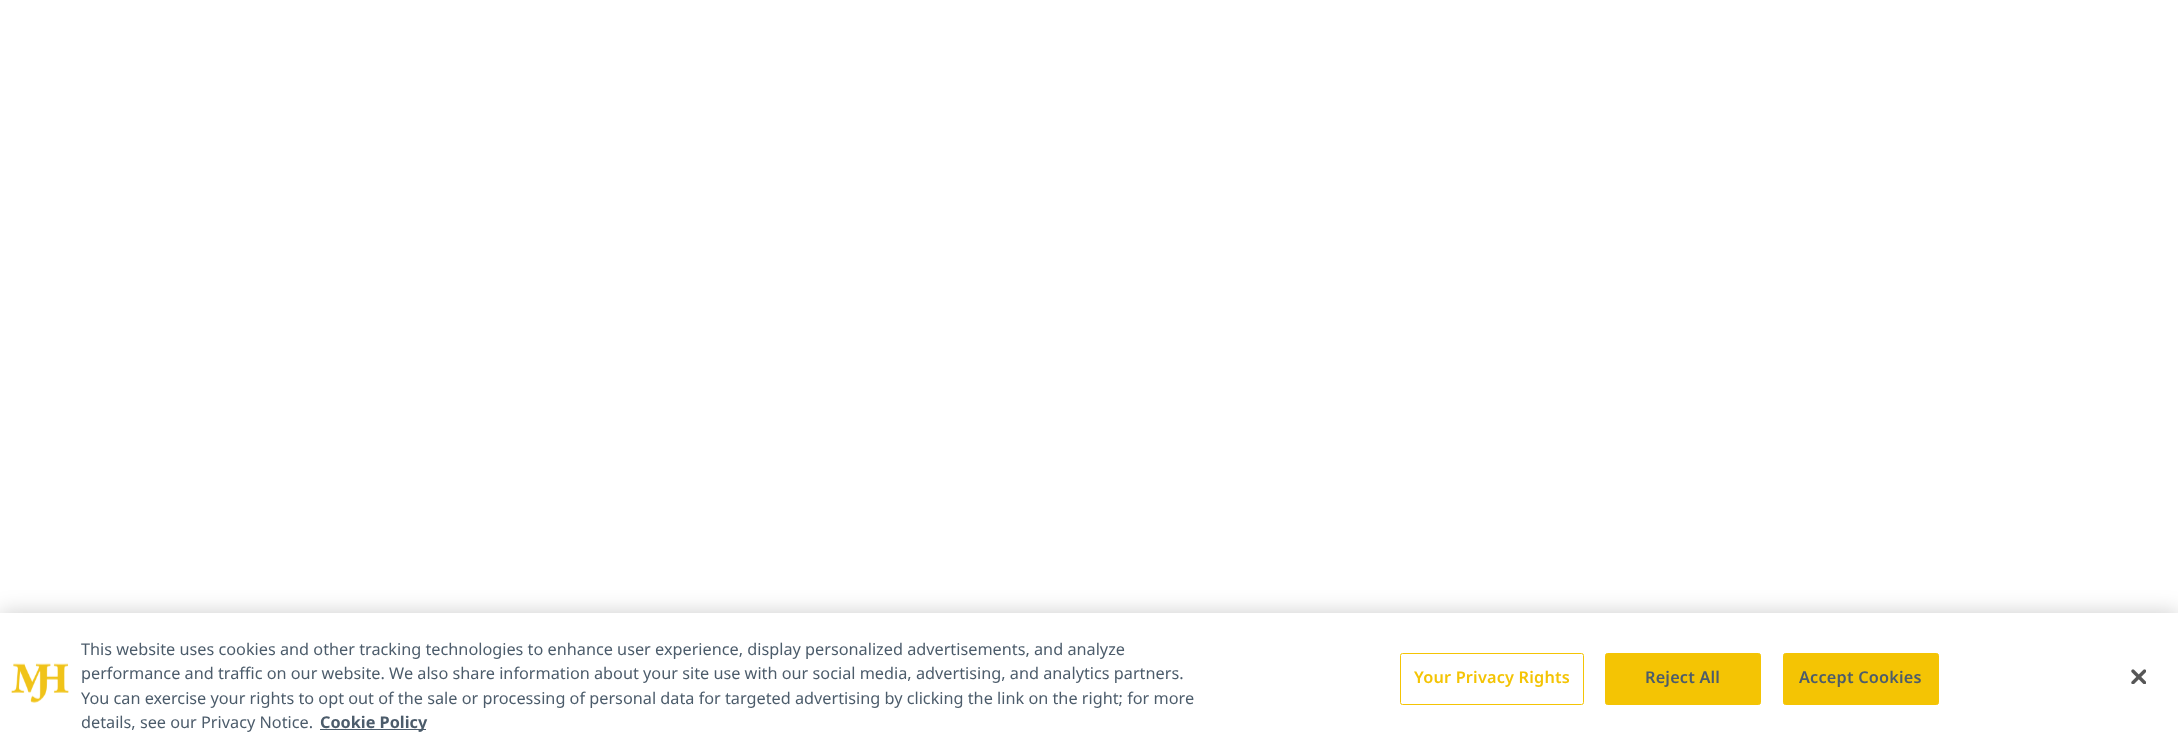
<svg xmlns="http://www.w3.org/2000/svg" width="2178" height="747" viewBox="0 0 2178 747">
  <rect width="100%" height="100%" fill="rgb(255,255,255)"/>
  <rect x="0" y="613" width="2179" height="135" fill="rgba(0,0,0,0.2)" filter="blur(11px)"/>
  <rect x="0" y="613" width="2178" height="134" fill="rgb(255,255,255)"/>
  <image x="11" y="663" width="58" height="40" href="pic1.png"/>
  <g font-family="Noto Sans" font-size="16.25" fill="rgb(76,92,107)">
    <text>
      <tspan x="81" y="655">This website uses cookies and other tracking technologies to enhance user experience, display personalized advertisements, and analyze</tspan>
      <tspan x="81" y="679">performance and traffic on our website. We also share information about your site use with our social media, advertising, and analytics partners.</tspan>
      <tspan x="81" y="704">You can exercise your rights to opt out of the sale or processing of personal data for targeted advertising by clicking the link on the right; for more</tspan>
      <tspan x="81" y="728">details, see our Privacy Notice.</tspan>
    </text>
  </g>
  <rect x="320" y="729" width="106" height="1" fill="rgb(76,92,107)"/>
  <text x="320" y="728" font-family="Noto Sans" font-size="16.25" font-weight="bold" fill="rgb(76,92,107)">Cookie Policy</text>
  <rect x="1400.5" y="653.5" width="183" height="51" rx="2" fill="none" stroke="rgb(244,196,4)"/>
  <text x="1414" y="683" font-family="Noto Sans" font-size="16.25" font-weight="600" letter-spacing="0.2" fill="rgb(244,196,4)">Your Privacy Rights</text>
  <rect x="1605.5" y="653.5" width="155" height="51" rx="2" fill="rgb(244,196,4)" stroke="rgb(244,196,4)"/>
  <text x="1645" y="683" font-family="Noto Sans" font-size="16.25" font-weight="600" letter-spacing="0.2" fill="rgb(76,92,107)">Reject All</text>
  <rect x="1783.5" y="653.5" width="155" height="51" rx="2" fill="rgb(244,196,4)" stroke="rgb(244,196,4)"/>
  <text x="1799" y="683" font-family="Noto Sans" font-size="16.25" font-weight="600" letter-spacing="0.2" fill="rgb(76,92,107)">Accept Cookies</text>
  <image x="2131" y="669" width="15" height="15" href="pic2.png"/>
</svg>
